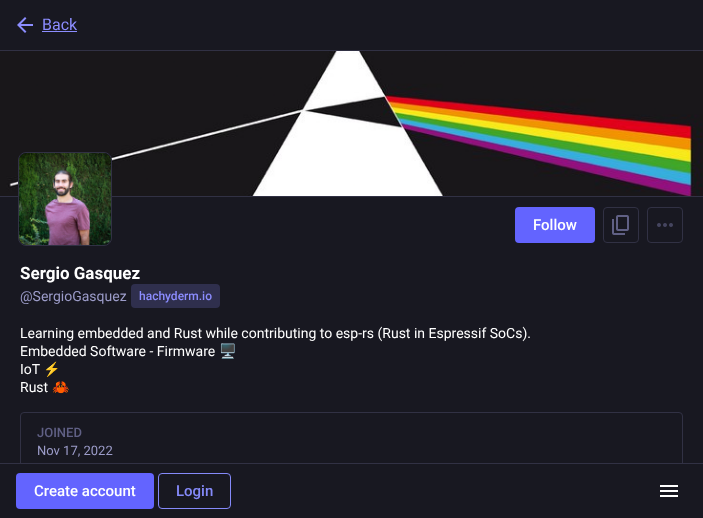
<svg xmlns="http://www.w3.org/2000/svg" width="703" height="518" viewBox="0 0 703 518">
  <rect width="100%" height="100%" fill="rgb(24,24,33)"/>
  <rect x="0" y="50" width="703" height="1" fill="rgb(49,49,68)"/>
  <image x="17" y="17" width="16" height="16" href="pic1.png"/>
  <text x="42" y="30" font-family="Roboto" font-size="16" fill="rgb(140,141,255)">Back</text>
  <rect x="42" y="31" width="35" height="1" fill="rgb(140,141,255)"/>
  <rect x="0" y="196" width="703" height="1" fill="rgb(49,49,68)"/>
  <image x="0" y="51" width="703" height="145" href="pic2.png"/>
  <rect x="18.5" y="152.5" width="93" height="93" rx="7.5" fill="rgb(24,24,33)" stroke="rgb(49,49,68)"/>
  <image x="19" y="153" width="92" height="92" href="pic3.png"/>
  <rect x="515" y="207" width="80" height="36" rx="4" fill="rgb(99,100,255)"/>
  <text x="533" y="230" font-family="Roboto" font-size="15" font-weight="500" fill="rgb(255,255,255)">Follow</text>
  <rect x="603.5" y="207.5" width="35" height="35" rx="3.5" fill="none" stroke="rgb(49,49,68)"/>
  <image x="612" y="215" width="17" height="20" href="pic4.png"/>
  <rect x="647.5" y="207.5" width="35" height="35" rx="3.5" fill="none" stroke="rgb(49,49,68)"/>
  <image x="657" y="223" width="16" height="4" href="pic5.png"/>
  <text x="20" y="279" font-family="Roboto" font-size="17" font-weight="bold" fill="rgb(255,255,255)">Sergio Gasquez</text>
  <text x="20" y="301" font-family="Roboto" font-size="14" fill="rgb(156,156,201)">@SergioGasquez</text>
  <rect x="131" y="284" width="89" height="24" rx="4" fill="rgb(47,47,77)"/>
  <text x="139" y="300" font-family="Roboto" font-size="12" font-weight="500" fill="rgb(140,141,255)">hachyderm.io</text>
  <g font-family="Roboto" font-size="14" fill="rgb(255,255,255)">
    <text>
      <tspan x="20" y="338">Learning embedded and Rust while contributing to esp-rs (Rust in Espressif SoCs).</tspan>
      <tspan x="20" y="356">Embedded Software - Firmware</tspan>
    </text>
  </g>
  <text x="219" y="356" font-family="Noto Color Emoji" font-size="14" fill="rgb(255,255,255)">🖥️</text>
  <text x="20" y="374" font-family="Roboto" font-size="14" fill="rgb(255,255,255)">IoT</text>
  <text x="43" y="374" font-family="Noto Color Emoji" font-size="14" fill="rgb(255,255,255)">⚡</text>
  <text x="20" y="392" font-family="Roboto" font-size="14" fill="rgb(255,255,255)">Rust</text>
  <text x="52" y="392" font-family="Noto Color Emoji" font-size="14" fill="rgb(255,255,255)">🦀</text>
  <rect x="20.5" y="412.5" width="662" height="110" rx="3.5" fill="none" stroke="rgb(49,49,68)"/>
  <text x="37" y="437" font-family="Roboto" font-size="13" font-weight="500" fill="rgb(96,96,133)">JOINED</text>
  <text x="37" y="455" font-family="Roboto" font-size="13" fill="rgb(156,156,201)">Nov 17, 2022</text>
  <rect x="20" y="464" width="663" height="54" fill="rgb(24,24,33)"/>
  <rect x="0" y="463" width="703" height="1" fill="rgb(49,49,68)"/>
  <rect x="16" y="473" width="138" height="36" rx="4" fill="rgb(99,100,255)"/>
  <text x="34" y="496" font-family="Roboto" font-size="15" font-weight="500" fill="rgb(255,255,255)">Create account</text>
  <rect x="158.5" y="473.5" width="72" height="35" rx="3.5" fill="none" stroke="rgb(133,138,250)"/>
  <text x="176" y="496" font-family="Roboto" font-size="15" font-weight="500" fill="rgb(133,138,250)">Login</text>
  <image x="660" y="485" width="18" height="12" href="pic6.png"/>
</svg>
